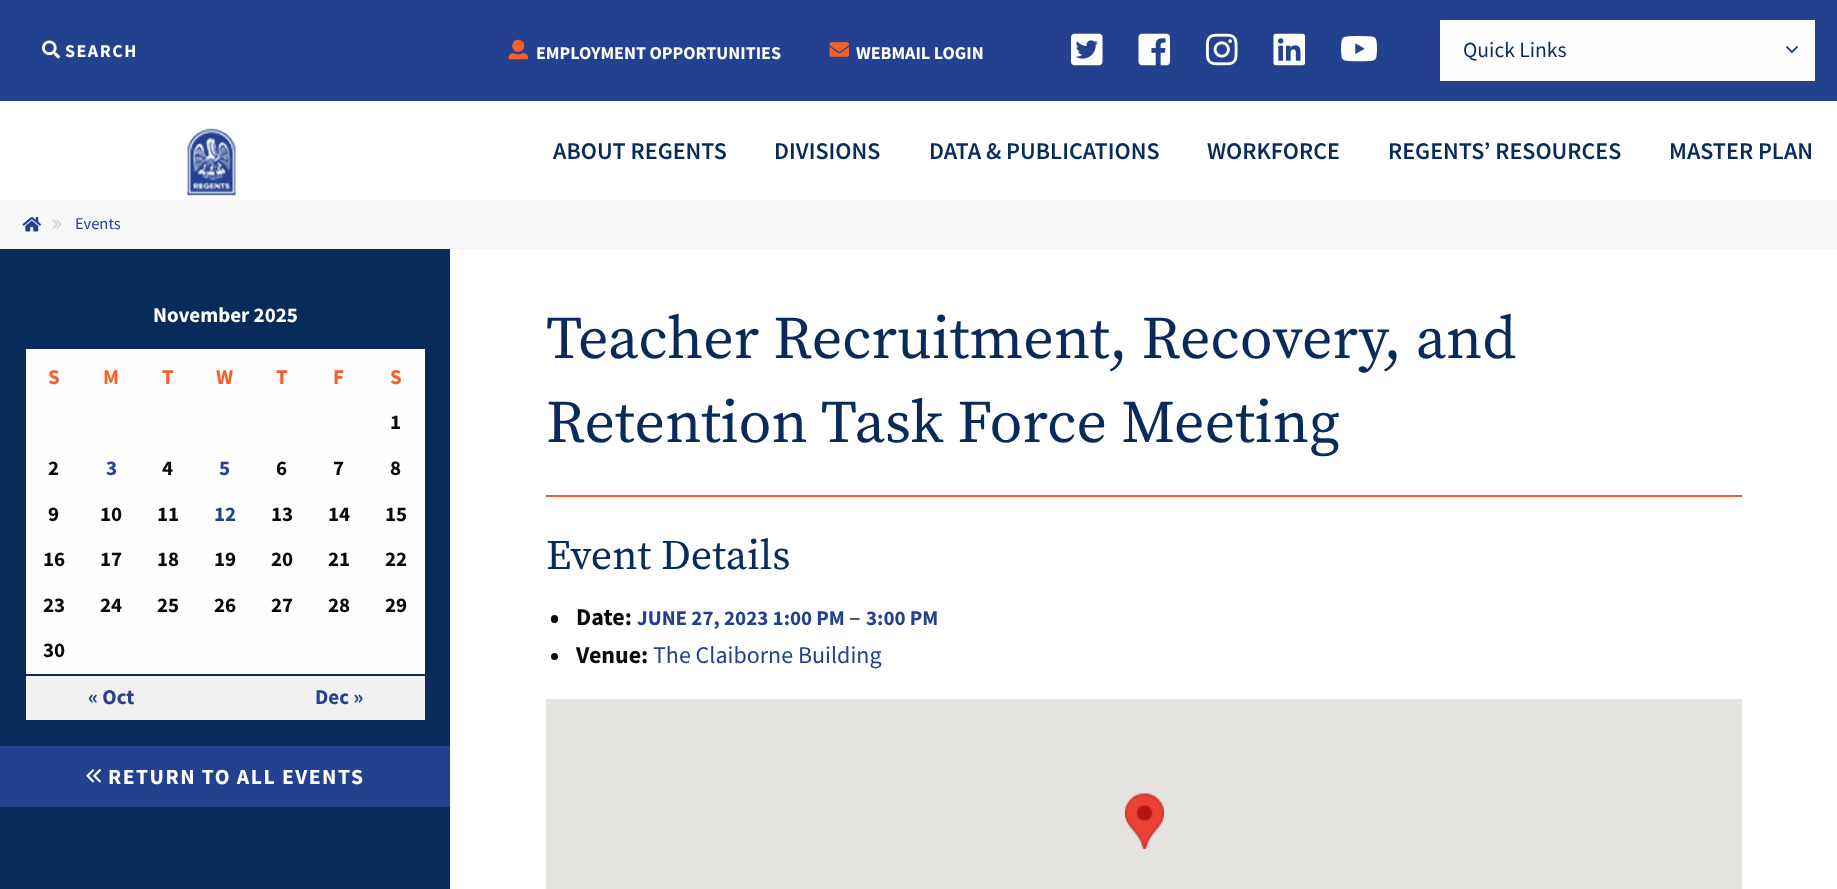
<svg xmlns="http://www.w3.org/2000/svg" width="1837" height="889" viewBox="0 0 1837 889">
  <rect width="100%" height="100%" fill="rgb(255,255,255)"/>
  <rect x="0" y="0" width="1837" height="101" fill="rgb(35,65,143)"/>
  <image x="42" y="40" width="18" height="19" href="pic1.png"/>
  <text x="65" y="57" font-family="Source Sans Pro" font-size="18" font-weight="bold" letter-spacing="1.5" fill="rgb(254,254,254)">SEARCH</text>
  <image x="508" y="39" width="20" height="21" href="pic2.png"/>
  <text x="536" y="59" font-family="Source Sans Pro" font-size="18" font-weight="bold" fill="rgb(254,254,254)">EMPLOYMENT OPPORTUNITIES</text>
  <image x="829" y="42" width="20" height="15" href="pic3.png"/>
  <text x="856" y="59" font-family="Source Sans Pro" font-size="18" font-weight="bold" fill="rgb(254,254,254)">WEBMAIL LOGIN</text>
  <image x="1071" y="33" width="32" height="33" href="pic4.png"/>
  <image x="1138" y="33" width="32" height="33" href="pic5.png"/>
  <image x="1206" y="33" width="32" height="33" href="pic6.png"/>
  <image x="1273" y="33" width="32" height="33" href="pic7.png"/>
  <image x="1341" y="36" width="36" height="26" href="pic8.png"/>
  <rect x="1440" y="20" width="375" height="61" fill="rgb(254,254,254)"/>
  <text x="1463" y="57" font-family="Source Sans Pro" font-size="21.6" fill="rgb(8,43,92)">Quick Links</text>
  <image x="1786" y="46" width="12" height="7" href="pic9.png"/>
  <image x="187" y="128" width="49" height="68" href="pic10.png"/>
  <g font-family="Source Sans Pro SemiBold" font-size="24" font-weight="600" fill="rgb(8,43,92)">
    <text x="553" y="159">ABOUT REGENTS</text>
    <text x="774" y="159">DIVISIONS</text>
    <text x="929" y="159">DATA &amp; PUBLICATIONS</text>
    <text x="1207" y="159">WORKFORCE</text>
    <text x="1388" y="159">REGENTS’ RESOURCES</text>
    <text x="1669" y="159">MASTER PLAN</text>
  </g>
  <rect x="0" y="200" width="1837" height="49" fill="rgb(247,247,247)"/>
  <image x="22" y="217" width="19" height="15" href="pic11.png"/>
  <image x="52" y="219" width="10" height="10" href="pic12.png"/>
  <text x="75" y="229" font-family="Source Sans Pro" font-size="16.5" fill="rgb(35,65,143)">Events</text>
  <rect x="0" y="249" width="450" height="640" fill="rgb(8,43,92)"/>
  <text x="153" y="322" font-family="Source Sans Pro" font-size="21" font-weight="bold" fill="rgb(254,254,254)">November 2025</text>
  <rect x="26" y="349" width="399" height="325" fill="rgb(254,254,254)"/>
  <g font-family="Source Sans Pro" font-size="21" font-weight="bold" fill="rgb(242,97,45)">
    <text x="48" y="384">S</text>
    <text x="103" y="384">M</text>
    <text x="162" y="384">T</text>
    <text x="216" y="384">W</text>
    <text x="276" y="384">T</text>
    <text x="333" y="384">F</text>
    <text x="390" y="384">S</text>
  </g>
  <g font-family="Source Sans Pro" font-size="21" font-weight="bold" fill="rgb(10,10,10)">
    <text x="390" y="429">1</text>
    <text x="48" y="475">2</text>
  </g>
  <text x="106" y="475" font-family="Source Sans Pro" font-size="21" font-weight="bold" fill="rgb(35,65,143)">3</text>
  <text x="162" y="475" font-family="Source Sans Pro" font-size="21" font-weight="bold" fill="rgb(10,10,10)">4</text>
  <text x="219" y="475" font-family="Source Sans Pro" font-size="21" font-weight="bold" fill="rgb(35,65,143)">5</text>
  <g font-family="Source Sans Pro" font-size="21" font-weight="bold" fill="rgb(10,10,10)">
    <text x="276" y="475">6</text>
    <text x="333" y="475">7</text>
    <text x="390" y="475">8</text>
    <text x="48" y="521">9</text>
    <text x="100" y="521">10</text>
    <text x="157" y="521">11</text>
  </g>
  <text x="214" y="521" font-family="Source Sans Pro" font-size="21" font-weight="bold" fill="rgb(35,65,143)">12</text>
  <g font-family="Source Sans Pro" font-size="21" font-weight="bold" fill="rgb(10,10,10)">
    <text x="271" y="521">13</text>
    <text x="328" y="521">14</text>
    <text x="385" y="521">15</text>
    <text x="43" y="566">16</text>
    <text x="100" y="566">17</text>
    <text x="157" y="566">18</text>
    <text x="214" y="566">19</text>
    <text x="271" y="566">20</text>
    <text x="328" y="566">21</text>
    <text x="385" y="566">22</text>
    <text x="43" y="612">23</text>
    <text x="100" y="612">24</text>
    <text x="157" y="612">25</text>
    <text x="214" y="612">26</text>
    <text x="271" y="612">27</text>
    <text x="328" y="612">28</text>
    <text x="385" y="612">29</text>
    <text x="43" y="657">30</text>
  </g>
  <rect x="26" y="676" width="399" height="44" fill="rgb(241,241,241)"/>
  <g font-family="Source Sans Pro" font-size="21" font-weight="bold" fill="rgb(35,65,143)">
    <text x="88" y="704">« Oct</text>
    <text x="315" y="704">Dec »</text>
  </g>
  <rect x="0" y="746" width="450" height="61" fill="rgb(35,65,143)"/>
  <image x="86" y="769" width="15" height="14" href="pic13.png"/>
  <text x="108" y="784" font-family="Source Sans Pro" font-size="21.6" font-weight="bold" letter-spacing="1.5" fill="rgb(254,254,254)">RETURN TO ALL EVENTS</text>
  <g font-family="Source Serif Pro" font-size="60" fill="rgb(8,43,92)">
    <text>
      <tspan x="546" y="358">Teacher Recruitment, Recovery, and</tspan>
      <tspan x="546" y="442">Retention Task Force Meeting</tspan>
    </text>
  </g>
  <rect x="546" y="495" width="1196" height="2" fill="rgb(242,97,45)"/>
  <text x="546" y="569" font-family="Source Serif Pro" font-size="42" fill="rgb(8,43,92)">Event Details</text>
  <rect x="551" y="615" width="7" height="8" rx="3.5" fill="rgb(10,10,10)"/>
  <text x="576" y="625" font-family="Source Sans Pro" font-size="24" font-weight="bold" fill="rgb(10,10,10)">Date:</text>
  <text x="637" y="625" font-family="Source Sans Pro" font-size="21" font-weight="bold" fill="rgb(35,65,143)">JUNE 27, 2023 1:00 PM</text>
  <text x="849" y="625" font-family="Source Sans Pro" font-size="24" fill="rgb(10,10,10)">–</text>
  <text x="866" y="625" font-family="Source Sans Pro" font-size="21" font-weight="bold" fill="rgb(35,65,143)">3:00 PM</text>
  <circle cx="554.5" cy="656.5" r="3.5" fill="rgb(10,10,10)"/>
  <text x="576" y="663" font-family="Source Sans Pro" font-size="24" font-weight="bold" fill="rgb(10,10,10)">Venue:</text>
  <text x="653" y="663" font-family="Source Sans Pro" font-size="24" fill="rgb(35,65,143)">The Claiborne Building</text>
  <rect x="546" y="699" width="1196" height="190" fill="rgb(229,227,223)"/>
  <image x="1125" y="793" width="39" height="56" href="pic14.png"/>
</svg>
